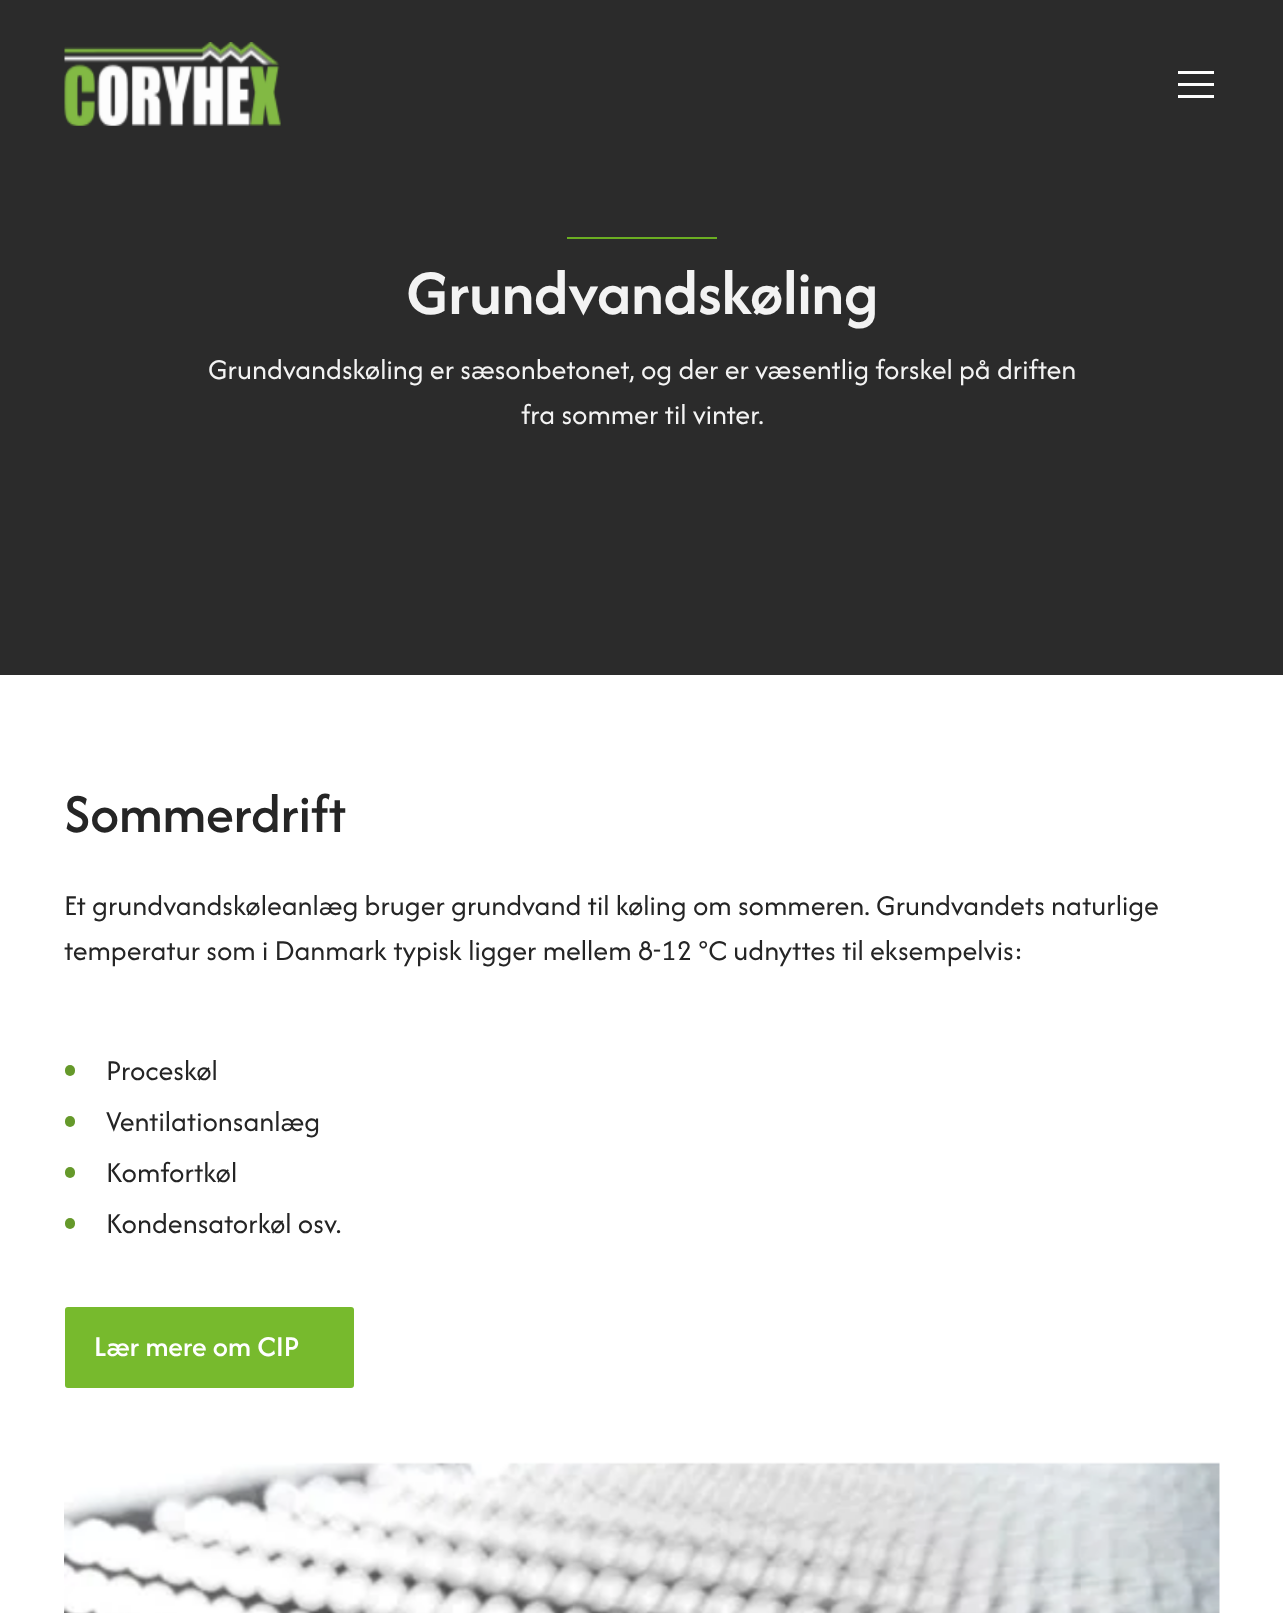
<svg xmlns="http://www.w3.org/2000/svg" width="1283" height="1613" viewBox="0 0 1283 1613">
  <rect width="100%" height="100%" fill="rgb(255,255,255)"/>
  <rect x="0" y="0" width="1283" height="675" fill="rgb(43,43,43)"/>
  <image x="64" y="42" width="217" height="84" href="pic1.png"/>
  <rect x="1178" y="71" width="36" height="3" fill="rgb(255,255,255)"/>
  <rect x="1178" y="83" width="36" height="3" fill="rgb(255,255,255)"/>
  <rect x="1178" y="95" width="36" height="3" fill="rgb(255,255,255)"/>
  <rect x="567" y="237" width="150" height="2" fill="rgb(107,174,34)"/>
  <text x="406" y="314" font-family="Afacad" font-size="66" font-weight="600" fill="rgb(243,243,243)">Grundvandskøling</text>
  <g font-family="Afacad" font-size="30" fill="rgb(243,243,243)">
    <text x="208" y="379">Grundvandskøling er sæsonbetonet, og der er væsentlig forskel på driften</text>
    <text x="521" y="424">fra sommer til vinter.</text>
  </g>
  <text x="64" y="832" font-family="Afacad" font-size="57" font-weight="500" fill="rgb(37,37,37)">Sommerdrift</text>
  <g font-family="Afacad" font-size="30" fill="rgb(37,37,37)">
    <text>
      <tspan x="64" y="915">Et grundvandskøleanlæg bruger grundvand til køling om sommeren. Grundvandets naturlige</tspan>
      <tspan x="64" y="960">temperatur som i Danmark typisk ligger mellem 8-12 °C udnyttes til eksempelvis:</tspan>
    </text>
  </g>
  <rect x="65" y="1065" width="10" height="11" rx="5" fill="rgb(101,153,42)"/>
  <text x="106" y="1080" font-family="Afacad" font-size="30" fill="rgb(37,37,37)">Proceskøl</text>
  <rect x="65" y="1116" width="10" height="11" rx="5" fill="rgb(101,153,42)"/>
  <text x="106" y="1131" font-family="Afacad" font-size="30" fill="rgb(37,37,37)">Ventilationsanlæg</text>
  <rect x="65" y="1167" width="10" height="11" rx="5" fill="rgb(101,153,42)"/>
  <text x="106" y="1182" font-family="Afacad" font-size="30" fill="rgb(37,37,37)">Komfortkøl</text>
  <rect x="65" y="1218" width="10" height="11" rx="5" fill="rgb(101,153,42)"/>
  <text x="106" y="1233" font-family="Afacad" font-size="30" fill="rgb(37,37,37)">Kondensatorkøl osv.</text>
  <rect x="65" y="1307" width="289" height="81" rx="3" fill="rgb(119,186,45)"/>
  <text x="94" y="1356" font-family="Afacad" font-size="30" font-weight="500" fill="rgb(255,255,255)">Lær mere om CIP</text>
  <image x="64" y="1462" width="1156" height="151" href="pic2.png"/>
</svg>
